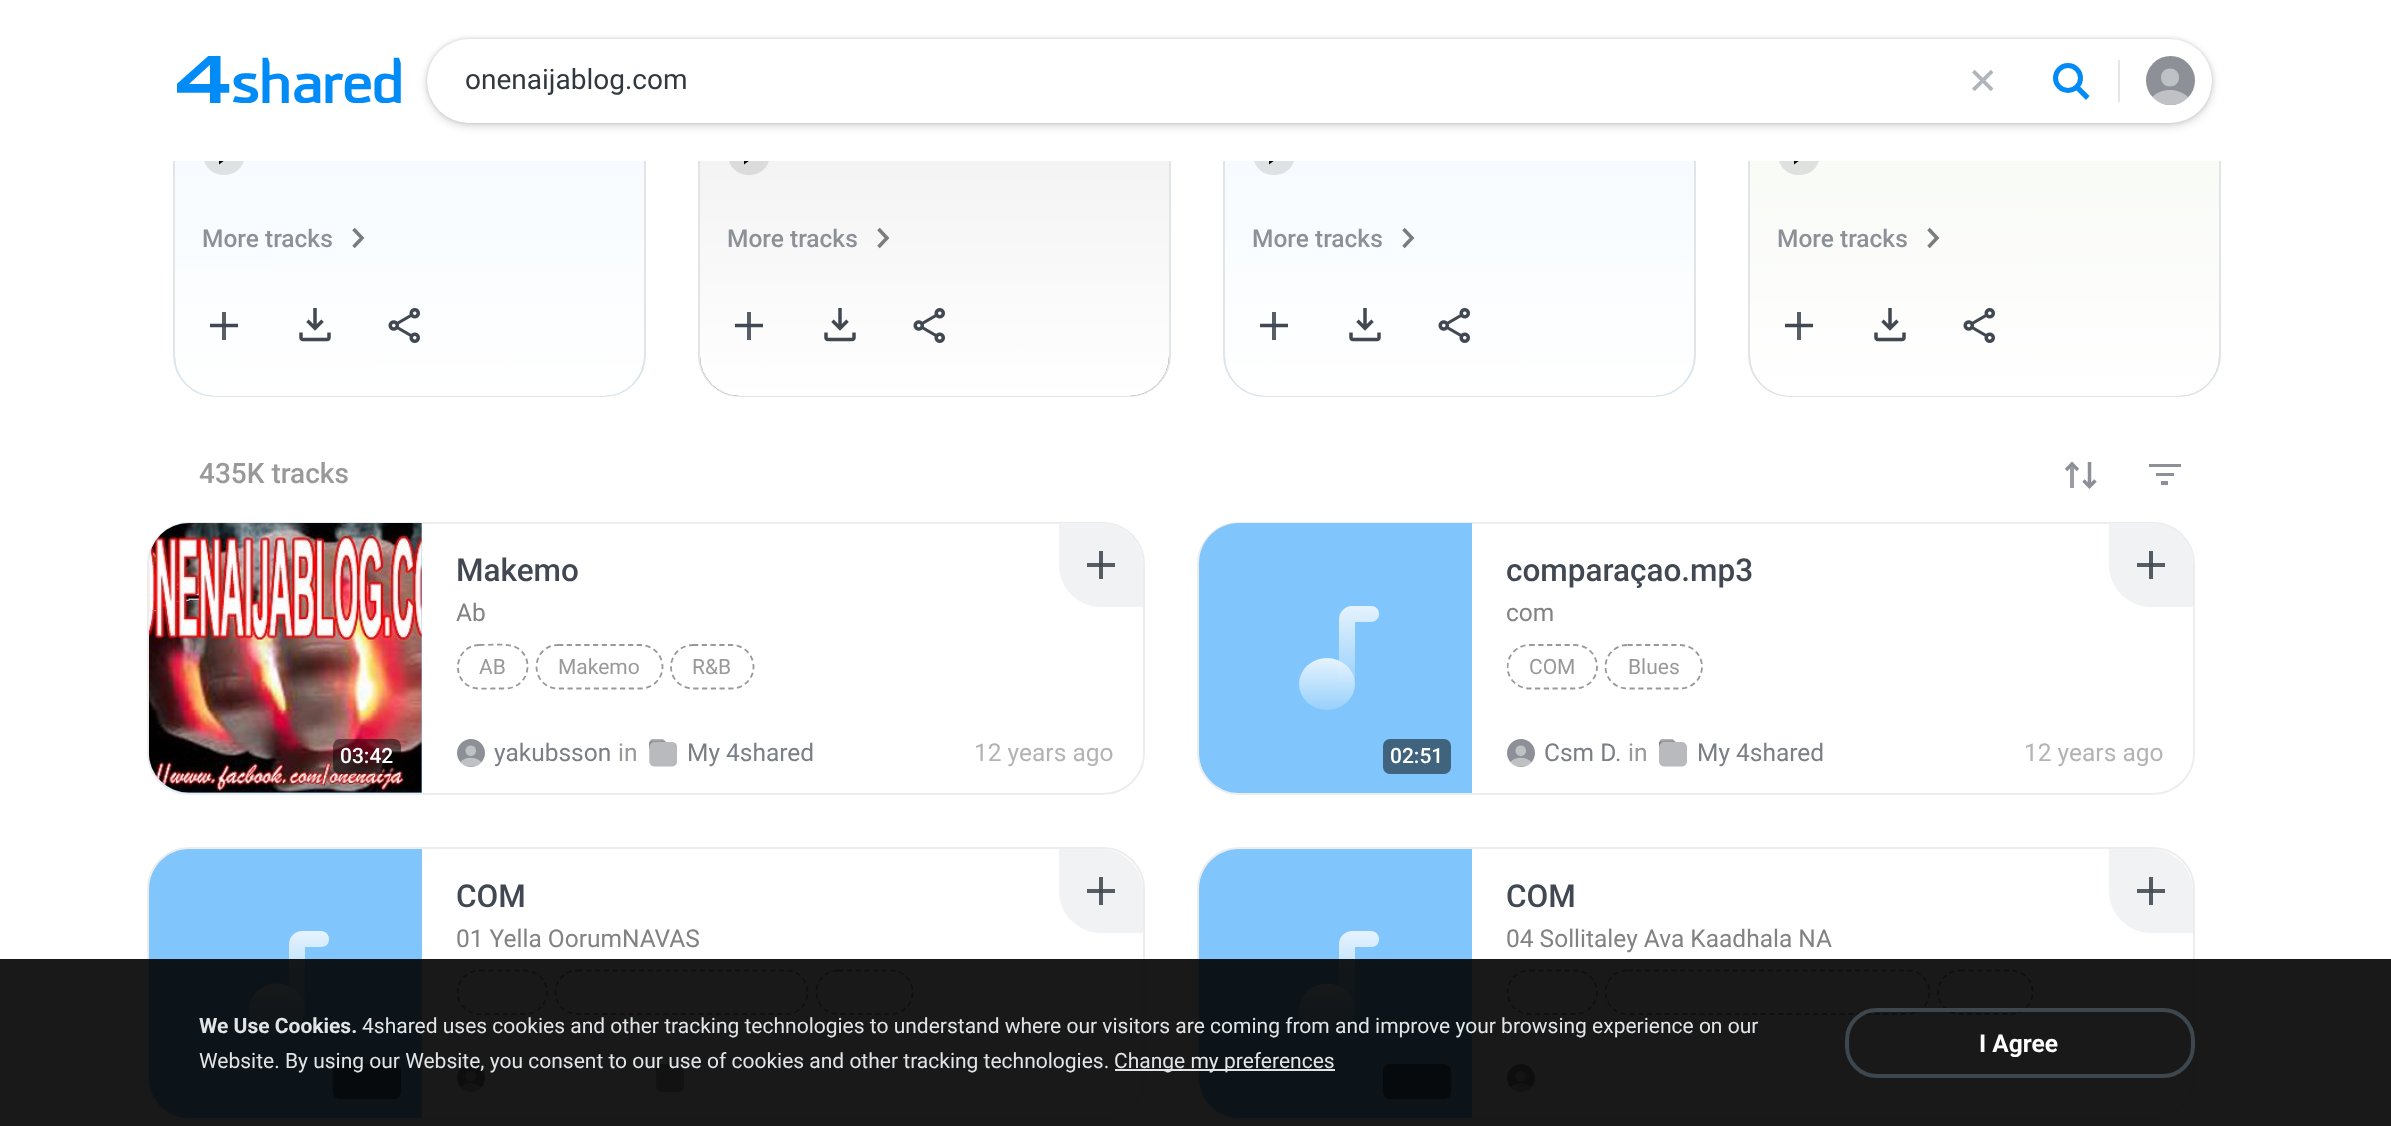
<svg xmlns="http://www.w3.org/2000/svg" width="2391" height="1126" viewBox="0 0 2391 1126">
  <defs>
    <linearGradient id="g1" gradientUnits="userSpaceOnUse" x1="409" y1="-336" x2="410" y2="396"><stop offset="0" stop-color="rgb(255,255,255)" stop-opacity="0.8"/><stop offset="1" stop-color="rgb(255,255,255)"/></linearGradient>
    <linearGradient id="g2" gradientUnits="userSpaceOnUse" x1="935" y1="-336" x2="935" y2="396"><stop offset="0" stop-color="rgb(255,255,255)" stop-opacity="0.8"/><stop offset="1" stop-color="rgb(255,255,255)"/></linearGradient>
    <linearGradient id="g3" gradientUnits="userSpaceOnUse" x1="1460" y1="-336" x2="1460" y2="396"><stop offset="0" stop-color="rgb(255,255,255)" stop-opacity="0.8"/><stop offset="1" stop-color="rgb(255,255,255)"/></linearGradient>
    <linearGradient id="g4" gradientUnits="userSpaceOnUse" x1="1985" y1="-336" x2="1985" y2="396"><stop offset="0" stop-color="rgb(255,255,255)" stop-opacity="0.8"/><stop offset="1" stop-color="rgb(255,255,255)"/></linearGradient>
    <clipPath id="clip1"><rect x="149" y="523" width="994" height="270" rx="40"/></clipPath>
    <clipPath id="clip2"><rect x="1199" y="523" width="994" height="270" rx="40"/></clipPath>
    <linearGradient id="g5" gradientUnits="userSpaceOnUse" x1="1342" y1="605" x2="1342" y2="708"><stop offset="0" stop-color="rgb(230,243,254)"/><stop offset="1" stop-color="rgb(128,197,251)"/></linearGradient>
    <linearGradient id="g6" gradientUnits="userSpaceOnUse" x1="1303" y1="658" x2="1303" y2="725"><stop offset="0" stop-color="rgb(255,255,255)" stop-opacity="0.8"/><stop offset="1" stop-color="rgb(255,255,255)" stop-opacity="0"/></linearGradient>
    <clipPath id="clip3"><rect x="1507" y="630" width="651" height="67"/></clipPath>
    <linearGradient id="g7" gradientUnits="userSpaceOnUse" x1="292" y1="931" x2="292" y2="1033"><stop offset="0" stop-color="rgb(230,243,254)"/><stop offset="1" stop-color="rgb(128,197,251)"/></linearGradient>
    <linearGradient id="g8" gradientUnits="userSpaceOnUse" x1="253" y1="983" x2="253" y2="1051"><stop offset="0" stop-color="rgb(255,255,255)" stop-opacity="0.8"/><stop offset="1" stop-color="rgb(255,255,255)" stop-opacity="0"/></linearGradient>
    <clipPath id="clip4"><rect x="457" y="956" width="651" height="66"/></clipPath>
    <clipPath id="clip5"><rect x="149" y="849" width="994" height="269" rx="40"/></clipPath>
    <linearGradient id="g9" gradientUnits="userSpaceOnUse" x1="1342" y1="931" x2="1342" y2="1033"><stop offset="0" stop-color="rgb(230,243,254)"/><stop offset="1" stop-color="rgb(128,197,251)"/></linearGradient>
    <linearGradient id="g10" gradientUnits="userSpaceOnUse" x1="1303" y1="983" x2="1303" y2="1051"><stop offset="0" stop-color="rgb(255,255,255)" stop-opacity="0.8"/><stop offset="1" stop-color="rgb(255,255,255)" stop-opacity="0"/></linearGradient>
    <clipPath id="clip6"><rect x="1507" y="956" width="651" height="66"/></clipPath>
    <clipPath id="clip7"><rect x="1199" y="849" width="994" height="269" rx="40"/></clipPath>
  </defs>
  <rect width="100%" height="100%" fill="rgb(255,255,255)"/>
  <rect x="174" y="-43" width="471" height="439" rx="41" fill="none" stroke="rgb(226,229,231)" stroke-width="2"/>
  <rect x="175" y="-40" width="469" height="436" rx="40" fill="rgb(128,197,251)"/>
  <rect x="175" y="-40" width="469" height="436" rx="40" fill="url(#g1)"/>
  <path d="M224 133C196 133 196 175 224 175C252 175 252 133 224 133Z" fill="rgb(222,226,229)"/>
  <path d="M219 143.5V164.5L233 154Z" fill="rgb(0,0,0)"/>
  <rect x="699" y="-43" width="471" height="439" rx="41" fill="none" stroke="rgb(226,229,231)" stroke-width="2"/>
  <rect x="700" y="-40" width="469" height="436" rx="40" fill="rgb(78,77,77)"/>
  <rect x="700" y="-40" width="469" height="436" rx="40" fill="url(#g2)"/>
  <path d="M749 133C721 133 721 175 749 175C777 175 777 133 749 133Z" fill="rgb(219,219,219)"/>
  <path d="M744 143.5V164.5L758 154Z" fill="rgb(0,0,0)"/>
  <rect x="1224" y="-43" width="471" height="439" rx="41" fill="none" stroke="rgb(226,229,231)" stroke-width="2"/>
  <rect x="1225" y="-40" width="469" height="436" rx="40" fill="rgb(128,197,251)"/>
  <rect x="1225" y="-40" width="469" height="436" rx="40" fill="url(#g3)"/>
  <path d="M1274 133C1246 133 1246 175 1274 175C1302 175 1302 133 1274 133Z" fill="rgb(222,226,229)"/>
  <path d="M1269 143.5V164.5L1283 154Z" fill="rgb(0,0,0)"/>
  <rect x="1749" y="-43" width="471" height="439" rx="41" fill="none" stroke="rgb(226,229,231)" stroke-width="2"/>
  <rect x="1750" y="-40" width="469" height="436" rx="40" fill="rgb(154,187,122)"/>
  <rect x="1750" y="-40" width="469" height="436" rx="40" fill="url(#g4)"/>
  <path d="M1799 133C1771 133 1771 175 1799 175C1827 175 1827 133 1799 133Z" fill="rgb(223,225,222)"/>
  <path d="M1794 143.5V164.5L1808 154Z" fill="rgb(0,0,0)"/>
  <rect x="173" y="0" width="2048" height="161" fill="rgb(255,255,255)"/>
  <rect x="427" y="39" width="1785" height="84" rx="42" fill="rgba(0,0,0,0.15)" filter="blur(2px)"/>
  <rect x="427" y="42" width="1785" height="84" rx="42" fill="rgba(0,0,0,0.15)" filter="blur(5px)"/>
  <rect x="427" y="39" width="1785" height="84" rx="42" fill="rgb(255,255,255)"/>
  <image x="177" y="56" width="224" height="47" href="pic1.png"/>
  <text x="465" y="89" font-family="Roboto" font-size="28" fill="rgb(49,56,62)">onenaijablog.com</text>
  <image x="1972" y="70" width="22" height="21" href="pic2.png"/>
  <circle cx="2068" cy="78" r="12.5" fill="none" stroke="rgb(0,139,246)" stroke-width="5"/>
  <path d="M2086 100L2075.5 89.5L2079 85.5L2089.5 96Z" fill="rgb(0,139,246)" fill-rule="evenodd"/>
  <rect x="2118" y="60" width="2" height="42" fill="rgb(230,230,230)"/>
  <circle cx="2170.5" cy="80.5" r="24.5" fill="rgb(141,145,151)"/>
  <path d="M2188.5 97.5C2178.5 107.5 2161.5 107.5 2152 97C2161.5 87.5 2179 87.5 2188.5 97.5Z" fill="rgba(241,242,243,0.5)"/>
  <path d="M2179 77.5C2179 89.5 2161 89.5 2161 77.5C2161 65.5 2179 65.5 2179 77.5Z" fill="rgb(191,194,197)"/>
  <text x="202" y="247" font-family="Roboto" font-size="24.5" font-weight="500" fill="rgb(141,145,151)">More tracks</text>
  <path d="M353.5 229L362 238L353.5 247" fill="none" stroke="rgb(122,124,125)" stroke-width="3.5"/>
  <path d="M238 325.5H210" fill="none" stroke="rgb(65,72,81)" stroke-width="3.5"/>
  <rect x="222" y="312" width="4" height="28" fill="rgba(65,72,81,0.88)"/>
  <image x="299" y="308" width="32" height="34" href="pic3.png"/>
  <image x="388" y="308" width="32" height="35" href="pic4.png"/>
  <text x="727" y="247" font-family="Roboto" font-size="24.5" font-weight="500" fill="rgb(141,145,151)">More tracks</text>
  <path d="M878.5 229L887 238L878.5 247" fill="none" stroke="rgb(122,124,125)" stroke-width="3.5"/>
  <path d="M763 325.5H735" fill="none" stroke="rgb(65,72,81)" stroke-width="3.5"/>
  <rect x="747" y="312" width="4" height="28" fill="rgba(65,72,81,0.88)"/>
  <image x="824" y="308" width="32" height="34" href="pic5.png"/>
  <image x="913" y="308" width="32" height="35" href="pic6.png"/>
  <text x="1252" y="247" font-family="Roboto" font-size="24.5" font-weight="500" fill="rgb(141,145,151)">More tracks</text>
  <path d="M1403.5 229L1412 238L1403.5 247" fill="none" stroke="rgb(122,124,125)" stroke-width="3.5"/>
  <path d="M1288 325.5H1260" fill="none" stroke="rgb(65,72,81)" stroke-width="3.5"/>
  <rect x="1272" y="312" width="4" height="28" fill="rgba(65,72,81,0.88)"/>
  <image x="1349" y="308" width="32" height="34" href="pic3.png"/>
  <image x="1438" y="308" width="32" height="35" href="pic4.png"/>
  <text x="1777" y="247" font-family="Roboto" font-size="24.5" font-weight="500" fill="rgb(141,145,151)">More tracks</text>
  <path d="M1928.5 229L1937 238L1928.5 247" fill="none" stroke="rgb(122,124,125)" stroke-width="3.5"/>
  <path d="M1813 325.5H1785" fill="none" stroke="rgb(65,72,81)" stroke-width="3.5"/>
  <rect x="1797" y="312" width="4" height="28" fill="rgba(65,72,81,0.88)"/>
  <image x="1874" y="308" width="32" height="34" href="pic7.png"/>
  <image x="1963" y="308" width="32" height="35" href="pic8.png"/>
  <text x="199" y="483" font-family="Roboto" font-size="28" font-weight="500" fill="rgb(153,153,153)">435K tracks</text>
  <path d="M2083.5 480.5L2089.5 486.5L2095.5 480.5M2089.5 486.5V462" fill="none" stroke="rgb(141,145,151)" stroke-width="3.5"/>
  <rect x="2070" y="464" width="4" height="24" fill="rgb(155,159,164)"/>
  <path d="M2078 470L2072 464L2066 470" fill="none" stroke="rgb(141,145,151)" stroke-width="3.5"/>
  <rect x="2149" y="464" width="32" height="3" fill="rgb(141,145,151)"/>
  <rect x="2156" y="473" width="18" height="3" fill="rgb(141,145,151)"/>
  <rect x="2161" y="481" width="7" height="4" fill="rgb(141,145,151)"/>
  <rect x="148" y="523" width="996" height="271" rx="41" fill="none" stroke="rgb(237,237,237)" stroke-width="2"/>
  <g clip-path="url(#clip1)">
    <path d="M1059 523H1101C1124 523 1143 542 1143 565V607H1101C1078 607 1059 588 1059 565Z" fill="rgb(241,242,243)"/>
  </g>
  <rect x="1099" y="551" width="4" height="28" fill="rgb(86,92,100)"/>
  <rect x="1087" y="563" width="28" height="4" fill="rgb(87,93,101)"/>
  <rect x="1099" y="563" width="4" height="4" fill="rgb(68,75,83)"/>
  <path d="M189 523H422V793H189C167 793 149 775 149 753V563C149 541 167 523 189 523Z" fill="rgb(128,197,251)"/>
  <image x="149" y="523" width="273" height="270" href="pic9.png"/>
  <rect x="333" y="739" width="68" height="35" rx="7" fill="rgba(0,0,0,0.5)"/>
  <text x="340" y="763" font-family="Roboto" font-size="21" font-weight="500" fill="rgb(255,255,255)">03:42</text>
  <text x="456" y="581" font-family="Roboto" font-size="31.5" font-weight="500" fill="rgb(65,72,81)">Makemo</text>
  <text x="456" y="621" font-family="Roboto" font-size="24.5" fill="rgb(130,130,130)">Ab</text>
  <path d="M479.5 645C488.5 645 507 643.5 514.5 646.5C536 656 529.5 687.5 506 688.5H492.5C485.5 688.5 477.5 689.5 471 687C449.5 678 456 645 479.5 645Z" fill="none" stroke="rgb(153,153,153)" stroke-width="1.8" stroke-dasharray="5.25 3.5"/>
  <text x="479" y="674" font-family="Roboto" font-size="21" fill="rgb(153,153,153)">AB</text>
  <path d="M558 645H640.5C652.5 645 662.5 654.5 662.5 667C662.5 679 652.5 688.5 640.5 688.5H558C546 688.5 536.5 679 536.5 667C536.5 654.5 546 645 558 645Z" fill="none" stroke="rgb(153,153,153)" stroke-width="1.8" stroke-dasharray="5.25 3.5"/>
  <text x="558" y="674" font-family="Roboto" font-size="21" fill="rgb(153,153,153)">Makemo</text>
  <path d="M693 645H731.5C743.5 645 753.5 654.5 753.5 667C753.5 679 743.5 688.5 731.5 688.5H693C681 688.5 671 679 671 667C671 654.5 681 645 693 645Z" fill="none" stroke="rgb(153,153,153)" stroke-width="1.8" stroke-dasharray="5.25 3.5"/>
  <text x="692" y="674" font-family="Roboto" font-size="21" fill="rgb(153,153,153)">R&amp;B</text>
  <image x="457" y="739" width="28" height="28" href="pic10.png"/>
  <text x="494" y="761" font-family="Roboto" font-size="24.5" fill="rgb(122,127,133)">yakubsson</text>
  <text x="618" y="761" font-family="Roboto" font-size="24.5" fill="rgb(153,153,153)">in</text>
  <image x="649" y="739" width="28" height="28" href="pic11.png"/>
  <text x="687" y="761" font-family="Roboto" font-size="24.5" fill="rgb(122,127,133)">My 4shared</text>
  <text x="974" y="761" font-family="Roboto" font-size="24.5" fill="rgb(179,179,179)">12 years ago</text>
  <rect x="1198" y="523" width="996" height="271" rx="41" fill="none" stroke="rgb(237,237,237)" stroke-width="2"/>
  <g clip-path="url(#clip2)">
    <path d="M2109 523H2151C2174 523 2193 542 2193 565V607H2151C2128 607 2109 588 2109 565Z" fill="rgb(241,242,243)"/>
  </g>
  <rect x="2149" y="551" width="4" height="28" fill="rgb(86,92,100)"/>
  <rect x="2137" y="563" width="28" height="4" fill="rgb(87,93,101)"/>
  <rect x="2149" y="563" width="4" height="4" fill="rgb(68,75,83)"/>
  <path d="M1239 523H1472V793H1239C1217 793 1199 775 1199 753V563C1199 541 1217 523 1239 523Z" fill="rgb(128,197,251)"/>
  <path d="M1352 606H1371C1376 606 1379 609 1379 614C1379 618 1376 622 1371 622H1355V682H1339V619C1339 612 1345 606 1352 606Z" fill="url(#g5)"/>
  <ellipse cx="1327" cy="684" rx="28" ry="26" fill="rgba(128,197,251,0.8)"/>
  <ellipse cx="1327" cy="684" rx="28" ry="26" fill="url(#g6)"/>
  <rect x="1383" y="739" width="68" height="35" rx="7" fill="rgb(64,99,126)"/>
  <text x="1390" y="763" font-family="Roboto" font-size="21" font-weight="500" fill="rgb(255,255,255)">02:51</text>
  <text x="1506" y="581" font-family="Roboto" font-size="31.5" font-weight="500" fill="rgb(65,72,81)">comparaçao.mp3</text>
  <text x="1506" y="621" font-family="Roboto" font-size="24.5" fill="rgb(130,130,130)">com</text>
  <g clip-path="url(#clip3)">
    <path d="M1529.5 645H1575C1587 645 1597 654.5 1597 667C1597 679 1587 688.5 1575 688.5H1529.5C1517.5 688.5 1507.5 679 1507.5 667C1507.5 654.5 1517.5 645 1529.5 645Z" fill="none" stroke="rgb(153,153,153)" stroke-width="1.8" stroke-dasharray="5.25 3.5"/>
  </g>
  <text x="1529" y="674" font-family="Roboto" font-size="21" fill="rgb(153,153,153)">COM</text>
  <path d="M1627.5 645H1680C1692 645 1702 654.5 1702 667C1702 679 1692 688.5 1680 688.5H1627.5C1615.5 688.5 1605.5 679 1605.5 667C1605.5 654.5 1615.5 645 1627.5 645Z" fill="none" stroke="rgb(153,153,153)" stroke-width="1.8" stroke-dasharray="5.25 3.5"/>
  <text x="1628" y="674" font-family="Roboto" font-size="21" fill="rgb(153,153,153)">Blues</text>
  <image x="1507" y="739" width="28" height="28" href="pic10.png"/>
  <text x="1544" y="761" font-family="Roboto" font-size="24.5" fill="rgb(122,127,133)">Csm D.</text>
  <text x="1628" y="761" font-family="Roboto" font-size="24.5" fill="rgb(153,153,153)">in</text>
  <image x="1659" y="739" width="28" height="28" href="pic12.png"/>
  <text x="1697" y="761" font-family="Roboto" font-size="24.5" fill="rgb(122,127,133)">My 4shared</text>
  <text x="2024" y="761" font-family="Roboto" font-size="24.5" fill="rgb(179,179,179)">12 years ago</text>
  <rect x="148" y="848" width="996" height="271" rx="41" fill="none" stroke="rgb(237,237,237)" stroke-width="2"/>
  <path d="M189 849H422V1118H189C167 1118 149 1100 149 1078V889C149 867 167 849 189 849Z" fill="rgb(128,197,251)"/>
  <path d="M302 931H321C326 931 329 935 329 939C329 944 326 947 321 947H305V1008H289V944C289 937 295 931 302 931Z" fill="url(#g7)"/>
  <ellipse cx="277" cy="1009.5" rx="28" ry="26" fill="rgba(128,197,251,0.8)"/>
  <ellipse cx="277" cy="1009.5" rx="28" ry="26" fill="url(#g8)"/>
  <rect x="333" y="1064" width="68" height="35" rx="7" fill="rgb(64,99,126)"/>
  <text x="456" y="907" font-family="Roboto" font-size="31.5" font-weight="500" fill="rgb(65,72,81)">COM</text>
  <text x="456" y="947" font-family="Roboto" font-size="24.5" fill="rgb(130,130,130)">01 Yella OorumNAVAS</text>
  <g clip-path="url(#clip4)">
    <path d="M479.5 970.5H525C537 970.5 547 980 547 992C547 1004.5 537 1014 525 1014H479.5C467.5 1014 457.5 1004.5 457.5 992C457.5 980 467.5 970.5 479.5 970.5Z" fill="none" stroke="rgb(153,153,153)" stroke-width="1.8" stroke-dasharray="5.25 3.5"/>
  </g>
  <path d="M577.5 970.5H786C798 970.5 807.5 980 807.5 992C807.5 1004.5 798 1014 786 1014H577.5C565.5 1014 555.5 1004.5 555.5 992C555.5 980 565.5 970.5 577.5 970.5Z" fill="none" stroke="rgb(153,153,153)" stroke-width="1.8" stroke-dasharray="5.25 3.5"/>
  <path d="M838 970.5H891C903 970.5 912.5 980 912.5 992C912.5 1004.5 903 1014 891 1014H838C826 1014 816.5 1004.5 816.5 992C816.5 980 826 970.5 838 970.5Z" fill="none" stroke="rgb(153,153,153)" stroke-width="1.8" stroke-dasharray="5.25 3.5"/>
  <image x="457" y="1064" width="28" height="28" href="pic13.png"/>
  <image x="656" y="1064" width="28" height="28" href="pic14.png"/>
  <g clip-path="url(#clip5)">
    <path d="M1059 849H1101C1124 849 1143 868 1143 891V933H1101C1078 933 1059 914 1059 891Z" fill="rgb(241,242,243)"/>
  </g>
  <rect x="1099" y="877" width="4" height="28" fill="rgb(86,92,100)"/>
  <rect x="1087" y="889" width="28" height="4" fill="rgb(87,93,101)"/>
  <rect x="1099" y="889" width="4" height="4" fill="rgb(68,75,83)"/>
  <rect x="1198" y="848" width="996" height="271" rx="41" fill="none" stroke="rgb(237,237,237)" stroke-width="2"/>
  <path d="M1239 849H1472V1118H1239C1217 1118 1199 1100 1199 1078V889C1199 867 1217 849 1239 849Z" fill="rgb(128,197,251)"/>
  <path d="M1352 931H1371C1376 931 1379 935 1379 939C1379 944 1376 947 1371 947H1355V1008H1339V944C1339 937 1345 931 1352 931Z" fill="url(#g9)"/>
  <ellipse cx="1327" cy="1009.5" rx="28" ry="26" fill="rgba(128,197,251,0.8)"/>
  <ellipse cx="1327" cy="1009.5" rx="28" ry="26" fill="url(#g10)"/>
  <rect x="1383" y="1064" width="68" height="35" rx="7" fill="rgb(64,99,126)"/>
  <text x="1506" y="907" font-family="Roboto" font-size="31.5" font-weight="500" fill="rgb(65,72,81)">COM</text>
  <text x="1506" y="947" font-family="Roboto" font-size="24.5" fill="rgb(130,130,130)">04 Sollitaley Ava Kaadhala NA</text>
  <g clip-path="url(#clip6)">
    <path d="M1529.5 970.5H1575C1587 970.5 1597 980 1597 992C1597 1004.5 1587 1014 1575 1014H1529.5C1517.5 1014 1507.5 1004.5 1507.5 992C1507.5 980 1517.5 970.5 1529.5 970.5Z" fill="none" stroke="rgb(153,153,153)" stroke-width="1.8" stroke-dasharray="5.25 3.5"/>
  </g>
  <path d="M1627.5 970.5H1907.5C1919.5 970.5 1929.5 980 1929.5 992C1929.5 1004.5 1919.5 1014 1907.5 1014H1627.5C1615.5 1014 1605.5 1004.5 1605.5 992C1605.5 980 1615.5 970.5 1627.5 970.5Z" fill="none" stroke="rgb(153,153,153)" stroke-width="1.8" stroke-dasharray="5.25 3.5"/>
  <path d="M1960 970.5H2011C2023 970.5 2032.5 980 2032.5 992C2032.5 1004.5 2023 1014 2011 1014H1960C1948 1014 1938 1004.5 1938 992C1938 980 1948 970.5 1960 970.5Z" fill="none" stroke="rgb(153,153,153)" stroke-width="1.8" stroke-dasharray="5.25 3.5"/>
  <image x="1507" y="1064" width="28" height="28" href="pic13.png"/>
  <g clip-path="url(#clip7)">
    <path d="M2109 849H2151C2174 849 2193 868 2193 891V933H2151C2128 933 2109 914 2109 891Z" fill="rgb(241,242,243)"/>
  </g>
  <rect x="2149" y="877" width="4" height="28" fill="rgb(86,92,100)"/>
  <rect x="2137" y="889" width="28" height="4" fill="rgb(87,93,101)"/>
  <rect x="2149" y="889" width="4" height="4" fill="rgb(68,75,83)"/>
  <rect x="0" y="959" width="2391" height="167" fill="rgba(0,0,0,0.9)"/>
  <text x="199" y="1033" font-family="Roboto" font-size="21" font-weight="bold" fill="rgb(226,229,231)">We Use Cookies.</text>
  <text x="362" y="1033" font-family="Roboto" font-size="21" fill="rgb(226,229,231)">4shared uses cookies and other tracking technologies to understand where our visitors are coming from and improve your browsing experience on our</text>
  <rect x="1847" y="1010" width="346" height="66" rx="30" fill="none" stroke="rgb(62,70,78)" stroke-width="4"/>
  <text x="1979" y="1052" font-family="Roboto" font-size="24.5" font-weight="bold" fill="rgb(255,255,255)">I Agree</text>
  <text x="199" y="1068" font-family="Roboto" font-size="21" fill="rgb(226,229,231)">Website. By using our Website, you consent to our use of cookies and other tracking technologies.</text>
  <rect x="1115" y="1069" width="220" height="2" fill="rgb(226,229,231)"/>
  <text x="1114" y="1068" font-family="Roboto" font-size="21" fill="rgb(226,229,231)">Change my preferences</text>
</svg>
